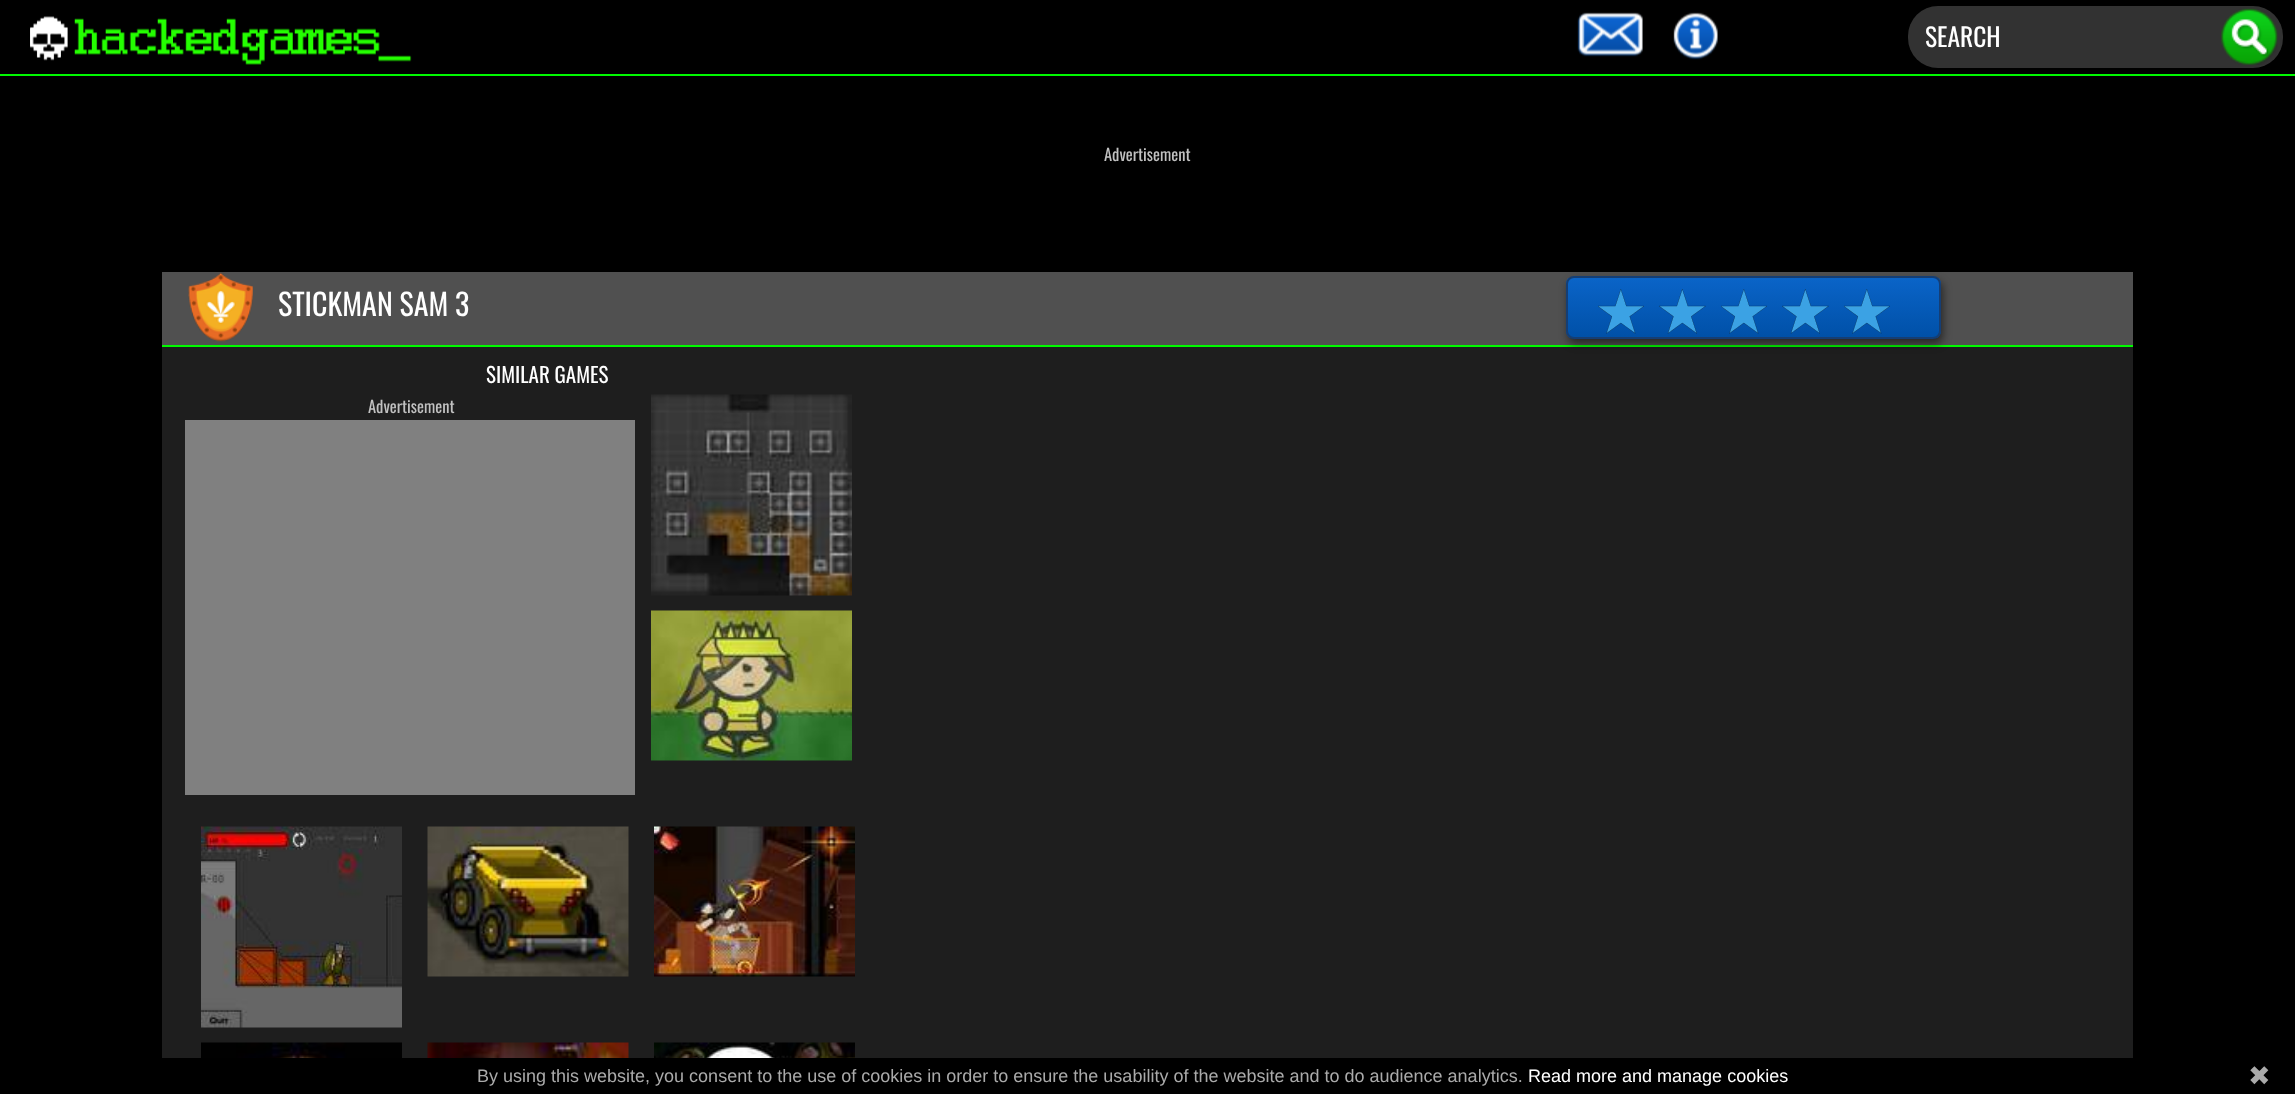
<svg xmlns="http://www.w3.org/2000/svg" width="2295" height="1094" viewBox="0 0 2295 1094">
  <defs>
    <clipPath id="clip1"><rect x="1566" y="276" width="375" height="63" rx="8"/></clipPath>
    <linearGradient id="g1" gradientUnits="userSpaceOnUse" x1="1754" y1="278" x2="1754" y2="338"><stop offset="0" stop-color="rgb(10,100,200)"/><stop offset="1" stop-color="rgb(0,80,167)"/></linearGradient>
  </defs>
  <rect width="100%" height="100%" fill="rgb(0,0,0)"/>
  <rect x="0" y="74" width="2295" height="2" fill="rgb(0,249,0)"/>
  <image x="30" y="16" width="382" height="49" href="pic1.png"/>
  <image x="1577" y="12" width="66" height="45" href="pic2.png"/>
  <image x="1673" y="12" width="45" height="48" href="pic3.png"/>
  <rect x="1908" y="6" width="375" height="62" rx="30" fill="rgb(50,50,50)"/>
  <text x="1925" y="47" font-family="Oswald" font-size="25.5" fill="rgb(255,255,255)">SEARCH</text>
  <image x="2221" y="8" width="57" height="57" href="pic4.png"/>
  <text x="1104" y="161" font-family="Oswald" font-size="16.5" fill="rgb(193,193,193)">Advertisement</text>
  <rect x="162" y="272" width="1971" height="73" fill="rgb(80,80,80)"/>
  <rect x="162" y="345" width="1971" height="2" fill="rgb(0,249,0)"/>
  <image x="188" y="272" width="65" height="70" href="pic5.png"/>
  <text x="278" y="316" font-family="Oswald" font-size="30" fill="rgb(255,255,255)">STICKMAN SAM 3</text>
  <rect x="162" y="347" width="1971" height="711" fill="rgb(30,30,30)"/>
  <rect x="1568" y="281" width="375" height="63" rx="8" fill="rgba(0,0,0,0.5)" filter="blur(4px)"/>
  <g clip-path="url(#clip1)">
    <rect x="1566" y="278" width="375" height="60" fill="url(#g1)"/>
  </g>
  <rect x="1567" y="277" width="373" height="61" rx="7" fill="none" stroke="rgb(21,62,116)" stroke-width="2"/>
  <image x="1598" y="289" width="46" height="45" href="pic6.png"/>
  <image x="1659" y="289" width="47" height="45" href="pic7.png"/>
  <image x="1721" y="289" width="46" height="45" href="pic6.png"/>
  <image x="1782" y="289" width="47" height="45" href="pic7.png"/>
  <image x="1844" y="289" width="46" height="45" href="pic6.png"/>
  <text x="486" y="383" font-family="Oswald" font-size="21" fill="rgb(255,255,255)">SIMILAR GAMES</text>
  <text x="368" y="413" font-family="Oswald" font-size="16.5" fill="rgb(193,193,193)">Advertisement</text>
  <rect x="185" y="420" width="450" height="375" fill="rgb(128,128,128)"/>
  <image x="651" y="394" width="201" height="202" href="pic8.png"/>
  <image x="651" y="610" width="201" height="151" href="pic9.png"/>
  <image x="201" y="826" width="201" height="202" href="pic10.png"/>
  <image x="427" y="826" width="202" height="151" href="pic11.png"/>
  <image x="654" y="826" width="201" height="151" href="pic12.png"/>
  <image x="201" y="1042" width="201" height="16" href="pic13.png"/>
  <image x="427" y="1042" width="202" height="16" href="pic14.png"/>
  <image x="654" y="1042" width="201" height="16" href="pic15.png"/>
  <text x="477" y="1082" font-family="Liberation Sans" font-size="18" fill="rgb(170,170,170)">By using this website, you consent to the use of cookies in order to ensure the usability of the website and to do audience analytics.</text>
  <text x="1528" y="1082" font-family="Liberation Sans" font-size="18" fill="rgb(255,255,255)">Read more and manage cookies</text>
  <text x="2248" y="1085" font-family="DejaVu Sans" font-size="27" fill="rgb(170,170,170)">✖</text>
</svg>
